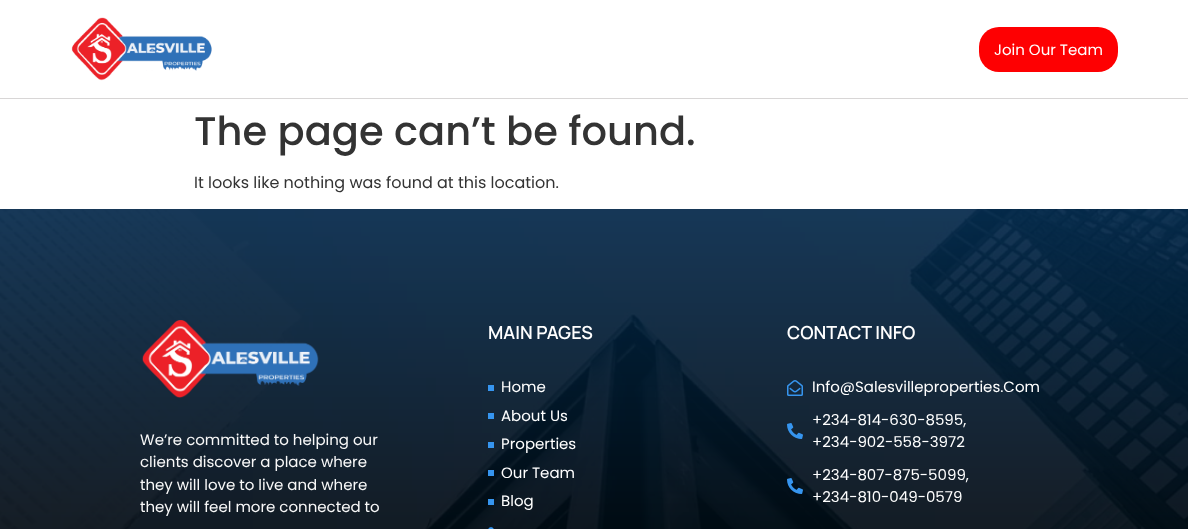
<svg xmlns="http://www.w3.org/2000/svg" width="1188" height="529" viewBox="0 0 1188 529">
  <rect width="100%" height="100%" fill="rgb(255,255,255)"/>
  <rect x="0" y="98" width="1188" height="1" fill="rgb(216,214,214)"/>
  <image x="71" y="17" width="141" height="64" href="pic1.png"/>
  <rect x="979" y="27" width="139" height="45" rx="20" fill="rgb(254,0,2)"/>
  <text x="994" y="55" font-family="Poppins" font-size="15" fill="rgb(255,255,255)">Join Our Team</text>
  <text x="194" y="145" font-family="Poppins" font-size="40" font-weight="500" fill="rgb(51,51,51)">The page can’t be found.</text>
  <text x="194" y="188" font-family="Poppins" font-size="16" fill="rgb(51,51,51)">It looks like nothing was found at this location.</text>
  <image x="0" y="209" width="1188" height="320" href="pic2.png"/>
  <image x="142" y="320" width="177" height="78" href="pic3.png"/>
  <g font-family="Poppins" font-size="15" fill="rgb(248,248,248)">
    <text>
      <tspan x="140" y="445">We’re committed to helping our</tspan>
      <tspan x="140" y="467">clients discover a place where</tspan>
      <tspan x="140" y="490">they will love to live and where</tspan>
      <tspan x="140" y="512">they will feel more connected to</tspan>
    </text>
  </g>
  <text x="488" y="339" font-family="Manrope" font-size="18" font-weight="600" fill="rgb(255,255,255)">MAIN PAGES</text>
  <rect x="488" y="385" width="6" height="6" fill="rgb(54,149,239)"/>
  <text x="501" y="392" font-family="Poppins" font-size="15" fill="rgb(255,255,255)">Home</text>
  <rect x="488" y="413" width="6" height="6" fill="rgb(54,149,239)"/>
  <text x="501" y="421" font-family="Poppins" font-size="15" fill="rgb(255,255,255)">About Us</text>
  <rect x="488" y="442" width="6" height="6" fill="rgb(54,149,239)"/>
  <text x="501" y="449" font-family="Poppins" font-size="15" fill="rgb(255,255,255)">Properties</text>
  <rect x="488" y="470" width="6" height="6" fill="rgb(54,149,239)"/>
  <text x="501" y="478" font-family="Poppins" font-size="15" fill="rgb(255,255,255)">Our Team</text>
  <rect x="488" y="499" width="6" height="6" fill="rgb(54,149,239)"/>
  <text x="501" y="506" font-family="Poppins" font-size="15" fill="rgb(255,255,255)">Blog</text>
  <image x="488" y="527" width="6" height="2" href="pic4.png"/>
  <text x="787" y="339" font-family="Manrope" font-size="18" font-weight="600" fill="rgb(255,255,255)">CONTACT INFO</text>
  <image x="787" y="380" width="16" height="16" href="pic5.png"/>
  <text x="812" y="392" font-family="Poppins" font-size="15" fill="rgb(255,255,255)">Info@Salesvilleproperties.Com</text>
  <image x="787" y="423" width="16" height="16" href="pic6.png"/>
  <g font-family="Poppins" font-size="15" fill="rgb(255,255,255)">
    <text>
      <tspan x="812" y="425">+234-814-630-8595,</tspan>
      <tspan x="812" y="447">+234-902-558-3972</tspan>
    </text>
  </g>
  <image x="787" y="478" width="16" height="16" href="pic7.png"/>
  <g font-family="Poppins" font-size="15" fill="rgb(255,255,255)">
    <text>
      <tspan x="812" y="480">+234-807-875-5099,</tspan>
      <tspan x="812" y="502">+234-810-049-0579</tspan>
    </text>
  </g>
</svg>
